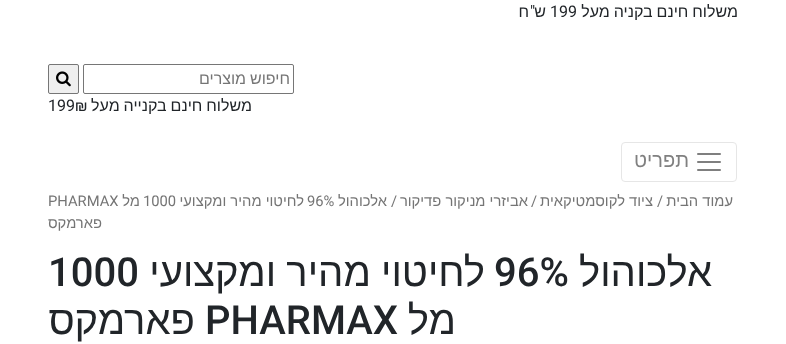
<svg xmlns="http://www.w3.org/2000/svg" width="786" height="344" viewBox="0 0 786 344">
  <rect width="100%" height="100%" fill="rgb(255,255,255)"/>
  <text x="738" y="17" word-spacing="-0.5" font-family="Liberation Sans" font-size="16" direction="rtl" fill="rgb(33,37,41)">משלוח חינם בקניה מעל</text>
  <text x="550" y="17" font-family="Roboto" font-size="16" fill="rgb(33,37,41)">199</text>
  <text x="546" y="17" font-family="Liberation Sans" font-size="16" direction="rtl" fill="rgb(33,37,41)">ש</text>
  <text x="535" y="17" font-family="Roboto" font-size="16" direction="rtl" fill="rgb(33,37,41)">"</text>
  <text x="529" y="17" font-family="Liberation Sans" font-size="16" direction="rtl" fill="rgb(33,37,41)">ח</text>
  <rect x="83.5" y="64.5" width="210" height="29" rx="1.5" fill="none" stroke="rgb(118,118,118)"/>
  <text x="290" y="84" word-spacing="-0.5" font-family="Liberation Sans" font-size="16" direction="rtl" fill="rgb(117,117,117)">חיפוש מוצרים</text>
  <rect x="48.5" y="64.5" width="30" height="29" rx="1.5" fill="rgb(239,239,239)" stroke="rgb(118,118,118)"/>
  <image x="56" y="71" width="15" height="16" href="pic1.png"/>
  <text x="252" y="111" word-spacing="-0.5" font-family="Liberation Sans" font-size="16" direction="rtl" fill="rgb(33,37,41)">משלוח חינם בקנייה מעל</text>
  <text x="48" y="111" font-family="Roboto" font-size="16" fill="rgb(33,37,41)">199₪</text>
  <rect x="621.5" y="142.5" width="115" height="39" rx="3.5" fill="none" stroke="rgb(230,230,230)"/>
  <image x="697" y="153" width="24" height="18" href="pic2.png"/>
  <text x="689" y="167" font-family="Liberation Sans" font-size="20" direction="rtl" fill="rgb(128,128,128)">תפריט</text>
  <text x="733" y="206" font-family="Liberation Sans" font-size="14.75" direction="rtl" fill="rgb(117,117,117)">עמוד הבית</text>
  <text x="657" y="206" font-family="Roboto" font-size="14.75" fill="rgb(117,117,117)">/</text>
  <text x="653" y="206" font-family="Liberation Sans" font-size="14.75" direction="rtl" fill="rgb(117,117,117)">ציוד לקוסמטיקאית</text>
  <text x="531" y="206" font-family="Roboto" font-size="14.75" fill="rgb(117,117,117)">/</text>
  <text x="528" y="206" font-family="Liberation Sans" font-size="14.75" direction="rtl" fill="rgb(117,117,117)">אביזרי מניקור פדיקור</text>
  <text x="397" y="206" font-family="Roboto" font-size="14.75" direction="rtl" fill="rgb(117,117,117)">/</text>
  <text x="387" y="206" font-family="Liberation Sans" font-size="14.75" direction="rtl" fill="rgb(117,117,117)">אלכוהול</text>
  <text x="307" y="206" font-family="Roboto" font-size="14.75" fill="rgb(117,117,117)">96%</text>
  <text x="304" y="206" font-family="Liberation Sans" font-size="14.75" direction="rtl" fill="rgb(117,117,117)">לחיטוי מהיר ומקצועי</text>
  <text x="143" y="206" font-family="Roboto" font-size="14.75" fill="rgb(117,117,117)">1000</text>
  <text x="140" y="206" font-family="Liberation Sans" font-size="14.75" direction="rtl" fill="rgb(117,117,117)">מל</text>
  <text x="48" y="206" font-family="Roboto" font-size="14.75" fill="rgb(117,117,117)">PHARMAX</text>
  <text x="102" y="228" font-family="Liberation Sans" font-size="14.75" direction="rtl" fill="rgb(117,117,117)">פארמקס</text>
  <text x="712" y="286" font-family="Liberation Sans" font-size="40" direction="rtl" fill="rgb(33,37,41)">אלכוהול</text>
  <text x="494" y="286" font-family="Roboto" font-size="40" font-weight="500" fill="rgb(33,37,41)">96%</text>
  <text x="485" y="286" word-spacing="-1" font-family="Liberation Sans" font-size="40" direction="rtl" fill="rgb(33,37,41)">לחיטוי מהיר ומקצועי</text>
  <text x="48" y="286" font-family="Roboto" font-size="40" font-weight="500" fill="rgb(33,37,41)">1000</text>
  <text x="456" y="334" font-family="Liberation Sans" font-size="40" direction="rtl" fill="rgb(33,37,41)">מל</text>
  <text x="205" y="334" font-family="Roboto" font-size="40" font-weight="500" fill="rgb(33,37,41)">PHARMAX</text>
  <text x="195" y="334" font-family="Liberation Sans" font-size="40" direction="rtl" fill="rgb(33,37,41)">פארמקס</text>
</svg>
